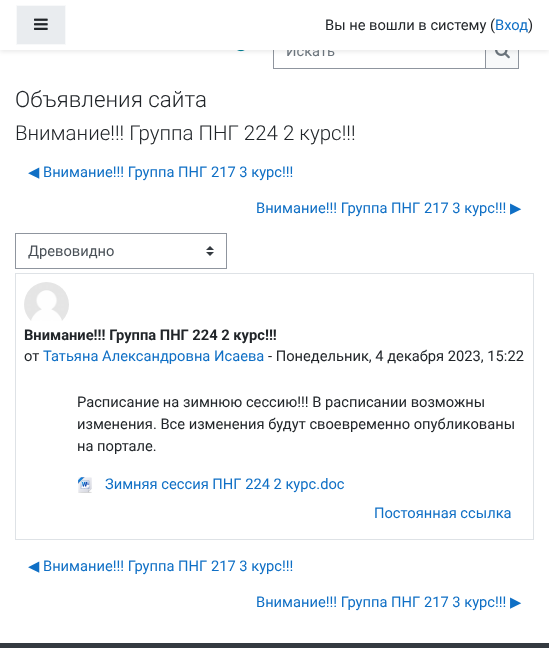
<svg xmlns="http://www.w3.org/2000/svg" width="549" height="648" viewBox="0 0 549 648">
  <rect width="100%" height="100%" fill="rgb(255,255,255)"/>
  <image x="237" y="50" width="8" height="2" href="pic2.png"/>
  <rect x="273.5" y="33.5" width="212" height="35" fill="none" stroke="rgb(143,149,158)"/>
  <rect x="486" y="50" width="32" height="18" fill="rgb(248,249,250)"/>
  <rect x="485.5" y="33.5" width="33" height="35" fill="none" stroke="rgb(143,149,158)"/>
  <image x="495" y="50" width="15" height="9" href="pic3.png"/>
  <rect x="0" y="2" width="549" height="50" fill="rgba(0,0,0,0.08)" filter="blur(2px)"/>
  <text x="286" y="56" font-family="Roboto" font-size="14.7" fill="rgb(108,117,125)">Искать</text>
  <rect x="0" y="0" width="549" height="50" fill="rgb(255,255,255)"/>
  <rect x="16.5" y="5.5" width="49" height="39" fill="rgb(233,236,239)" stroke="rgb(248,249,250)"/>
  <image x="34" y="18" width="14" height="12" href="pic1.png"/>
  <text x="325" y="30" font-family="Roboto" font-size="14.7" fill="rgb(33,37,41)">Вы не вошли в систему (</text>
  <text x="495" y="30" font-family="Roboto" font-size="14.7" fill="rgb(15,111,197)">Вход</text>
  <text x="528" y="30" font-family="Roboto" font-size="14.7" fill="rgb(33,37,41)">)</text>
  <text x="15" y="107" font-family="Roboto" font-size="22.4" font-weight="300" fill="rgb(33,37,41)">Объявления сайта</text>
  <text x="15" y="140" font-family="Roboto" font-size="20.5" font-weight="300" fill="rgb(33,37,41)">Внимание!!! Группа ПНГ 224 2 курс!!!</text>
  <text x="28" y="177" font-family="DejaVu Sans" font-size="14.7" fill="rgb(15,111,197)">◀︎</text>
  <g font-family="Roboto" font-size="14.7" fill="rgb(15,111,197)">
    <text x="43" y="177">Внимание!!! Группа ПНГ 217 3 курс!!!</text>
    <text x="256" y="213">Внимание!!! Группа ПНГ 217 3 курс!!!</text>
  </g>
  <text x="510" y="213" font-family="DejaVu Sans" font-size="14.7" fill="rgb(15,111,197)">▶︎</text>
  <image x="206" y="246" width="8" height="10" href="pic4.png"/>
  <rect x="15.5" y="233.5" width="211" height="35" fill="none" stroke="rgb(143,149,158)"/>
  <text x="28" y="256" font-family="Roboto" font-size="14.7" fill="rgb(73,80,87)">Древовидно</text>
  <rect x="15.5" y="273.5" width="518" height="266" fill="none" stroke="rgb(222,226,230)"/>
  <image x="24" y="282" width="45" height="39" href="pic5.png"/>
  <text x="24" y="340" font-family="Roboto" font-size="14.7" font-weight="bold" fill="rgb(33,37,41)">Внимание!!! Группа ПНГ 224 2 курс!!!</text>
  <text x="24" y="361" font-family="Roboto" font-size="14.7" fill="rgb(33,37,41)">от</text>
  <text x="43" y="361" font-family="Roboto" font-size="14.7" fill="rgb(15,111,197)">Татьяна Александровна Исаева</text>
  <g font-family="Roboto" font-size="14.7" fill="rgb(33,37,41)">
    <text x="268" y="361">- Понедельник, 4 декабря 2023, 15:22</text>
    <text>
      <tspan x="77" y="407">Расписание на зимнюю сессию!!! В расписании возможны</tspan>
      <tspan x="77" y="429">изменения. Все изменения будут своевременно опубликованы</tspan>
      <tspan x="77" y="451">на портале.</tspan>
    </text>
  </g>
  <image x="78" y="477" width="14" height="16" href="pic6.png"/>
  <g font-family="Roboto" font-size="14.7" fill="rgb(15,111,197)">
    <text x="105" y="489">Зимняя сессия ПНГ 224 2 курс.doc</text>
    <text x="374" y="518">Постоянная ссылка</text>
  </g>
  <text x="28" y="571" font-family="DejaVu Sans" font-size="14.7" fill="rgb(15,111,197)">◀︎</text>
  <g font-family="Roboto" font-size="14.7" fill="rgb(15,111,197)">
    <text x="43" y="571">Внимание!!! Группа ПНГ 217 3 курс!!!</text>
    <text x="256" y="607">Внимание!!! Группа ПНГ 217 3 курс!!!</text>
  </g>
  <text x="510" y="607" font-family="DejaVu Sans" font-size="14.7" fill="rgb(15,111,197)">▶︎</text>
  <rect x="0" y="643" width="549" height="5" fill="rgb(52,58,64)"/>
</svg>
